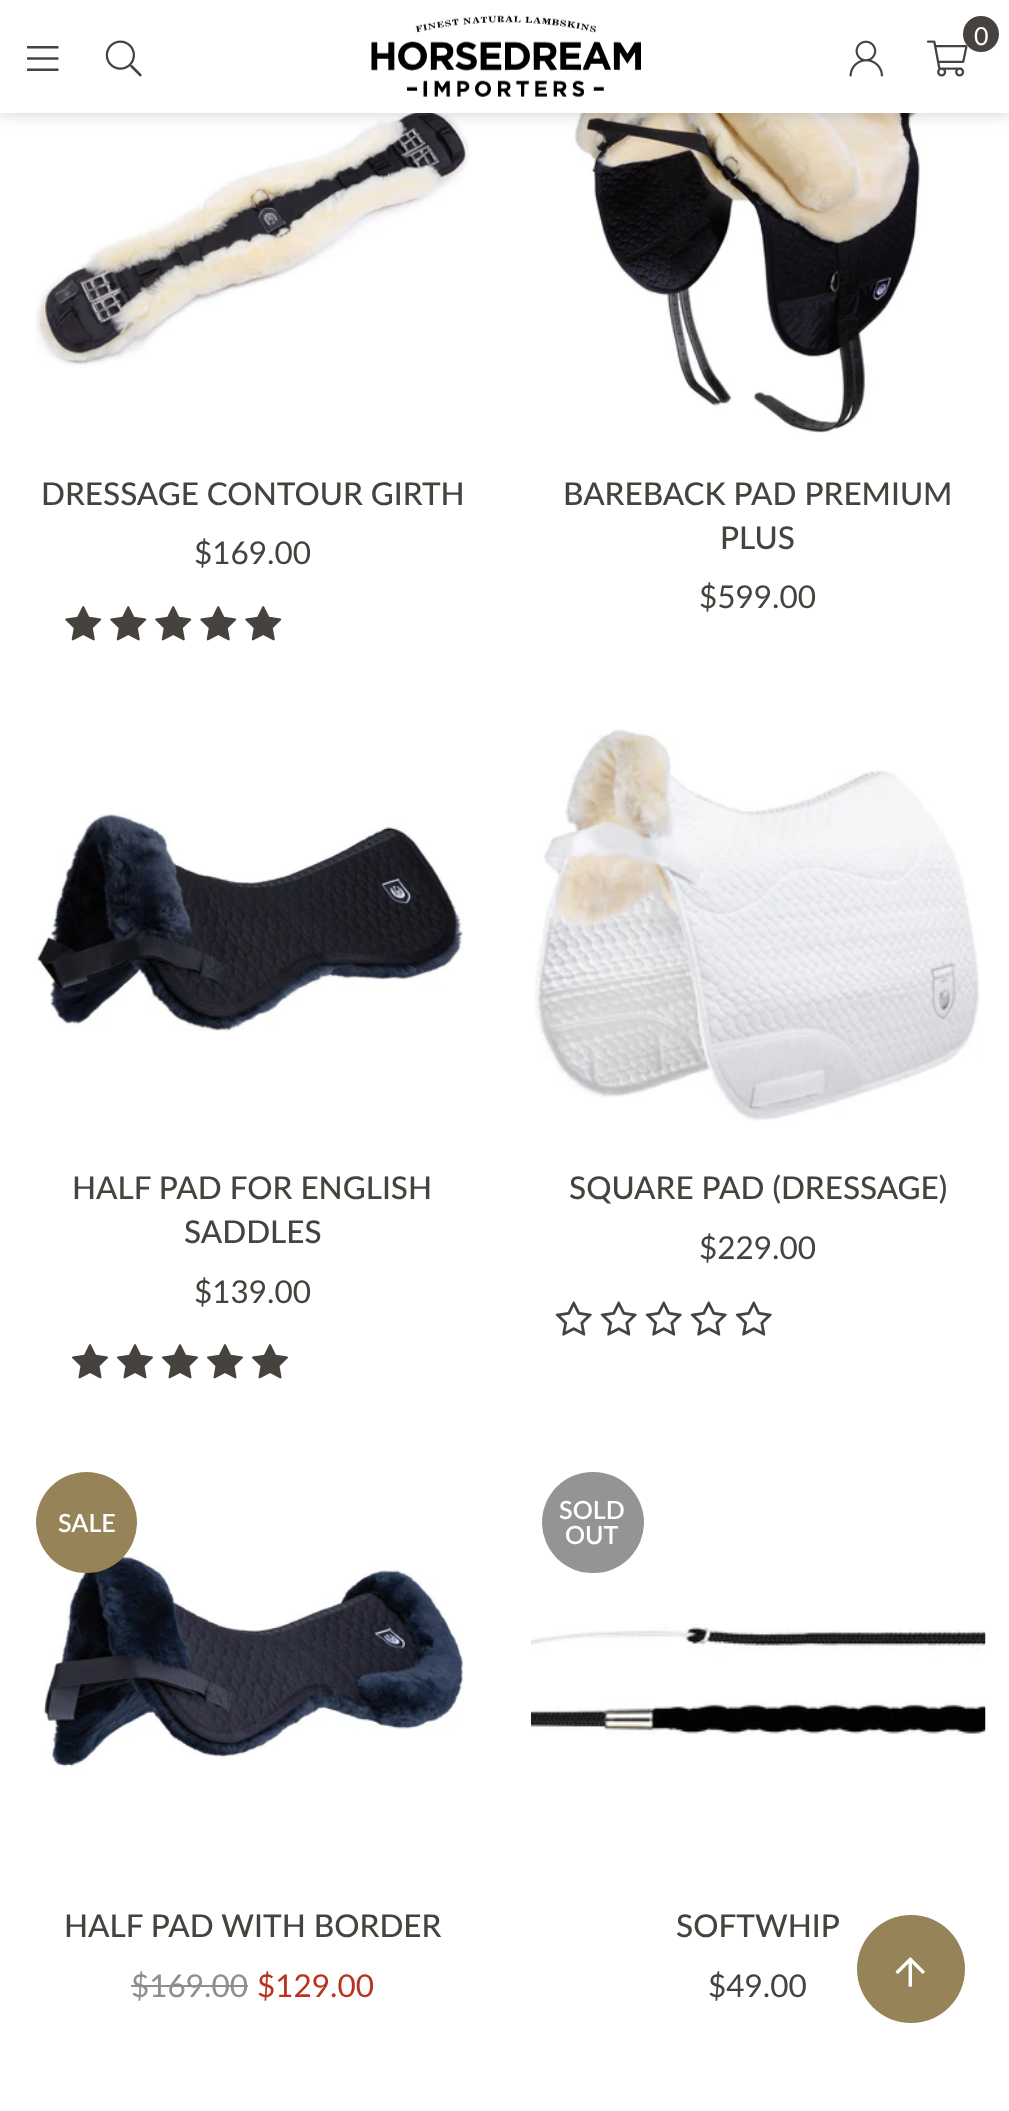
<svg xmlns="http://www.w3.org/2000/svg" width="1009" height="2111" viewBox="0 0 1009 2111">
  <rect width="100%" height="100%" fill="rgb(255,255,255)"/>
  <image x="35" y="113" width="435" height="255" href="pic6.png"/>
  <image x="573" y="113" width="369" height="322" href="pic8.png"/>
  <rect x="0" y="0" width="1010" height="113" fill="rgba(0,0,0,0.2)" filter="blur(8px)"/>
  <rect x="0" y="0" width="1009" height="113" fill="rgb(255,255,255)"/>
  <image x="371" y="15" width="270" height="82" href="pic1.png"/>
  <image x="927" y="40" width="41" height="37" href="pic2.png"/>
  <circle cx="981" cy="34" r="18" fill="rgb(70,66,61)"/>
  <text x="974" y="45" font-family="Lato" font-size="25" fill="rgb(255,255,255)">0</text>
  <image x="849" y="40" width="34" height="37" href="pic3.png"/>
  <image x="27" y="46" width="32" height="25" href="pic4.png"/>
  <image x="105" y="40" width="37" height="37" href="pic5.png"/>
  <text x="41" y="505" font-family="Lato" font-size="31.5" font-weight="500" fill="rgb(70,66,61)">DRESSAGE CONTOUR GIRTH</text>
  <text x="194" y="564" font-family="Lato" font-size="31.5" fill="rgb(70,66,61)">$169.00</text>
  <image x="65" y="606" width="37" height="35" href="pic7.png"/>
  <image x="110" y="606" width="37" height="35" href="pic7.png"/>
  <image x="155" y="606" width="37" height="35" href="pic7.png"/>
  <image x="200" y="606" width="37" height="35" href="pic7.png"/>
  <image x="245" y="606" width="37" height="35" href="pic7.png"/>
  <g font-family="Lato" font-size="31.5" font-weight="500" fill="rgb(70,66,61)">
    <text x="563" y="505">BAREBACK PAD PREMIUM</text>
    <text x="720" y="549">PLUS</text>
  </g>
  <text x="699" y="608" font-family="Lato" font-size="31.5" fill="rgb(70,66,61)">$599.00</text>
  <image x="35" y="813" width="429" height="219" href="pic9.png"/>
  <g font-family="Lato" font-size="31.5" font-weight="500" fill="rgb(70,66,61)">
    <text x="72" y="1199">HALF PAD FOR ENGLISH</text>
    <text x="184" y="1243">SADDLES</text>
  </g>
  <text x="194" y="1303" font-family="Lato" font-size="31.5" fill="rgb(70,66,61)">$139.00</text>
  <image x="72" y="1344" width="36" height="35" href="pic10.png"/>
  <image x="117" y="1344" width="36" height="35" href="pic10.png"/>
  <image x="162" y="1344" width="36" height="35" href="pic10.png"/>
  <image x="207" y="1344" width="36" height="35" href="pic10.png"/>
  <image x="252" y="1344" width="36" height="35" href="pic10.png"/>
  <image x="534" y="729" width="445" height="392" href="pic11.png"/>
  <text x="569" y="1199" font-family="Lato" font-size="31.5" font-weight="500" fill="rgb(70,66,61)">SQUARE PAD (DRESSAGE)</text>
  <text x="699" y="1259" font-family="Lato" font-size="31.5" fill="rgb(70,66,61)">$229.00</text>
  <image x="555" y="1301" width="37" height="35" href="pic12.png"/>
  <image x="600" y="1301" width="37" height="35" href="pic12.png"/>
  <image x="645" y="1301" width="37" height="35" href="pic12.png"/>
  <image x="690" y="1301" width="37" height="35" href="pic12.png"/>
  <image x="735" y="1301" width="37" height="35" href="pic12.png"/>
  <image x="43" y="1555" width="421" height="215" href="pic13.png"/>
  <circle cx="86.5" cy="1522.5" r="50.5" fill="rgb(151,131,88)"/>
  <text x="58" y="1532" font-family="Lato" font-size="25" font-weight="600" fill="rgb(255,255,255)">SALE</text>
  <text x="64" y="1937" font-family="Lato" font-size="31.5" font-weight="500" fill="rgb(70,66,61)">HALF PAD WITH BORDER</text>
  <text x="131" y="1997" font-family="Lato" font-size="31.5" fill="rgb(144,142,139)">$169.00</text>
  <rect x="131" y="1985" width="117" height="2" fill="rgb(144,142,139)"/>
  <text x="257" y="1997" font-family="Lato" font-size="31.5" fill="rgb(185,51,30)">$129.00</text>
  <rect x="542" y="1472" width="102" height="101" rx="50.5" fill="rgb(148,148,148)"/>
  <g font-family="Lato" font-size="25" font-weight="600" fill="rgb(255,255,255)">
    <text x="559" y="1519">SOLD</text>
    <text x="565" y="1544">OUT</text>
  </g>
  <image x="531" y="1624" width="455" height="111" href="pic14.png"/>
  <text x="676" y="1937" font-family="Lato" font-size="31.5" font-weight="500" fill="rgb(70,66,61)">SOFTWHIP</text>
  <text x="708" y="1997" font-family="Lato" font-size="31.5" fill="rgb(70,66,61)">$49.00</text>
  <circle cx="911" cy="1969" r="54" fill="rgb(151,131,88)"/>
  <image x="895" y="1957" width="30" height="30" href="pic15.png"/>
</svg>
